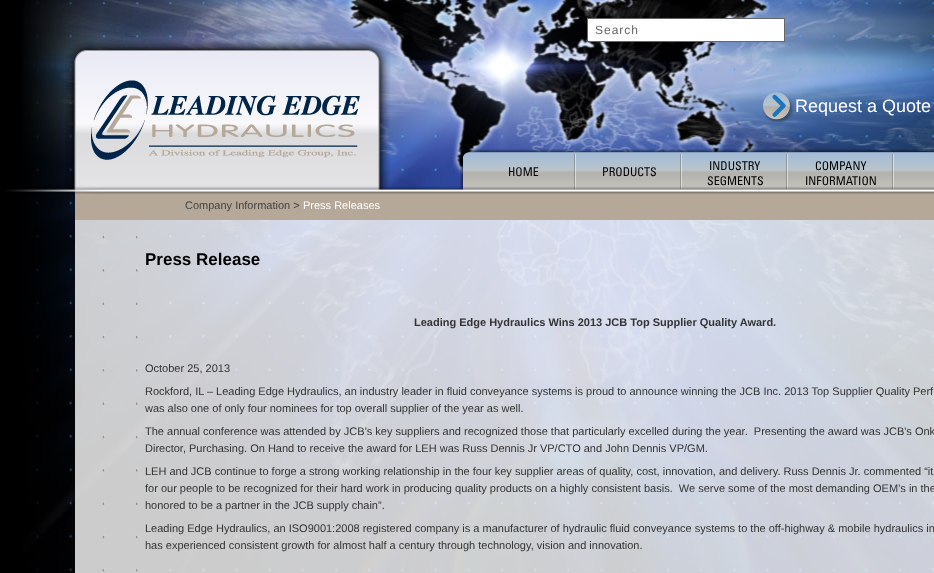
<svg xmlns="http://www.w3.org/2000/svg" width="934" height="573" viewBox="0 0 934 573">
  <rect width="100%" height="100%" fill="rgb(0,0,0)"/>
  <image x="22" y="0" width="912" height="573" href="pic1.png"/>
  <image x="65" y="39" width="325" height="151" href="pic2.png"/>
  <rect x="587.5" y="18.5" width="197" height="23" fill="rgb(255,255,255)" stroke="rgb(102,102,102)"/>
  <text x="595" y="34" font-family="Liberation Sans" font-size="12" letter-spacing="1" fill="rgb(102,102,102)">Search</text>
  <image x="763" y="92" width="31" height="30" href="pic3.png"/>
  <text x="795" y="112" font-family="Liberation Sans" font-size="18" fill="rgb(255,255,255)">Request a Quote</text>
  <image x="460" y="151" width="10" height="39" href="pic4.png"/>
  <image x="470" y="149" width="464" height="41" href="pic5.png"/>
  <image x="574" y="154" width="2" height="35" href="pic6.png"/>
  <text x="508" y="176" font-family="Univers" font-size="12" fill="rgb(0,0,0)">HOME</text>
  <image x="680" y="154" width="2" height="35" href="pic6.png"/>
  <text x="602" y="176" font-family="Univers" font-size="12" fill="rgb(0,0,0)">PRODUCTS</text>
  <image x="786" y="154" width="2" height="35" href="pic6.png"/>
  <g font-family="Univers" font-size="12" fill="rgb(0,0,0)">
    <text x="709" y="170">INDUSTRY</text>
    <text x="707" y="185">SEGMENTS</text>
  </g>
  <image x="892" y="154" width="2" height="35" href="pic6.png"/>
  <g font-family="Univers" font-size="12" fill="rgb(0,0,0)">
    <text x="815" y="170">COMPANY</text>
    <text x="805" y="185">INFORMATION</text>
  </g>
  <rect x="75" y="190" width="859" height="30" fill="rgb(181,168,153)"/>
  <image x="6" y="186" width="95" height="8" href="pic7.png"/>
  <image x="101" y="186" width="833" height="8" href="pic8.png"/>
  <text x="185" y="209" font-family="Liberation Sans" font-size="11" fill="rgb(68,68,68)">Company Information &gt;</text>
  <text x="303" y="209" font-family="Liberation Sans" font-size="11" fill="rgb(255,255,255)">Press Releases</text>
  <rect x="75" y="220" width="859" height="353" fill="rgba(255,255,255,0.8)"/>
  <image x="102" y="235" width="36" height="337" href="pic9.png"/>
  <text x="145" y="265" font-family="Liberation Sans" font-size="17" font-weight="bold" fill="rgb(0,0,0)">Press Release</text>
  <text x="414" y="326" font-family="Liberation Sans" font-size="11" font-weight="bold" fill="rgb(51,51,51)">Leading Edge Hydraulics Wins 2013 JCB Top Supplier Quality Award.</text>
  <g font-family="Liberation Sans" font-size="11" fill="rgb(51,51,51)">
    <text x="145" y="372">October 25, 2013</text>
    <text>
      <tspan x="145" y="395">Rockford, IL – Leading Edge Hydraulics, an industry leader in fluid conveyance systems is proud to announce winning the JCB Inc. 2013 Top Supplier Quality Perf</tspan>
      <tspan x="145" y="412">was also one of only four nominees for top overall supplier of the year as well.</tspan>
    </text>
    <text xml:space="preserve"><tspan x="145" y="435">The annual conference was attended by JCB’s key suppliers and recognized those that particularly excelled during the year.  Presenting the award was JCB's Onk</tspan><tspan x="145" y="452">Director, Purchasing. On Hand to receive the award for LEH was Russ Dennis Jr VP/CTO and John Dennis VP/GM.</tspan></text>
    <text xml:space="preserve"><tspan x="145" y="475">LEH and JCB continue to forge a strong working relationship in the four key supplier areas of quality, cost, innovation, and delivery. Russ Dennis Jr. commented “it</tspan><tspan x="145" y="492">for our people to be recognized for their hard work in producing quality products on a highly consistent basis.  We serve some of the most demanding OEM’s in the</tspan><tspan x="145" y="509">honored to be a partner in the JCB supply chain”.</tspan></text>
    <text>
      <tspan x="145" y="532">Leading Edge Hydraulics, an ISO9001:2008 registered company is a manufacturer of hydraulic fluid conveyance systems to the off-highway &amp; mobile hydraulics in</tspan>
      <tspan x="145" y="549">has experienced consistent growth for almost half a century through technology, vision and innovation.</tspan>
    </text>
  </g>
</svg>
